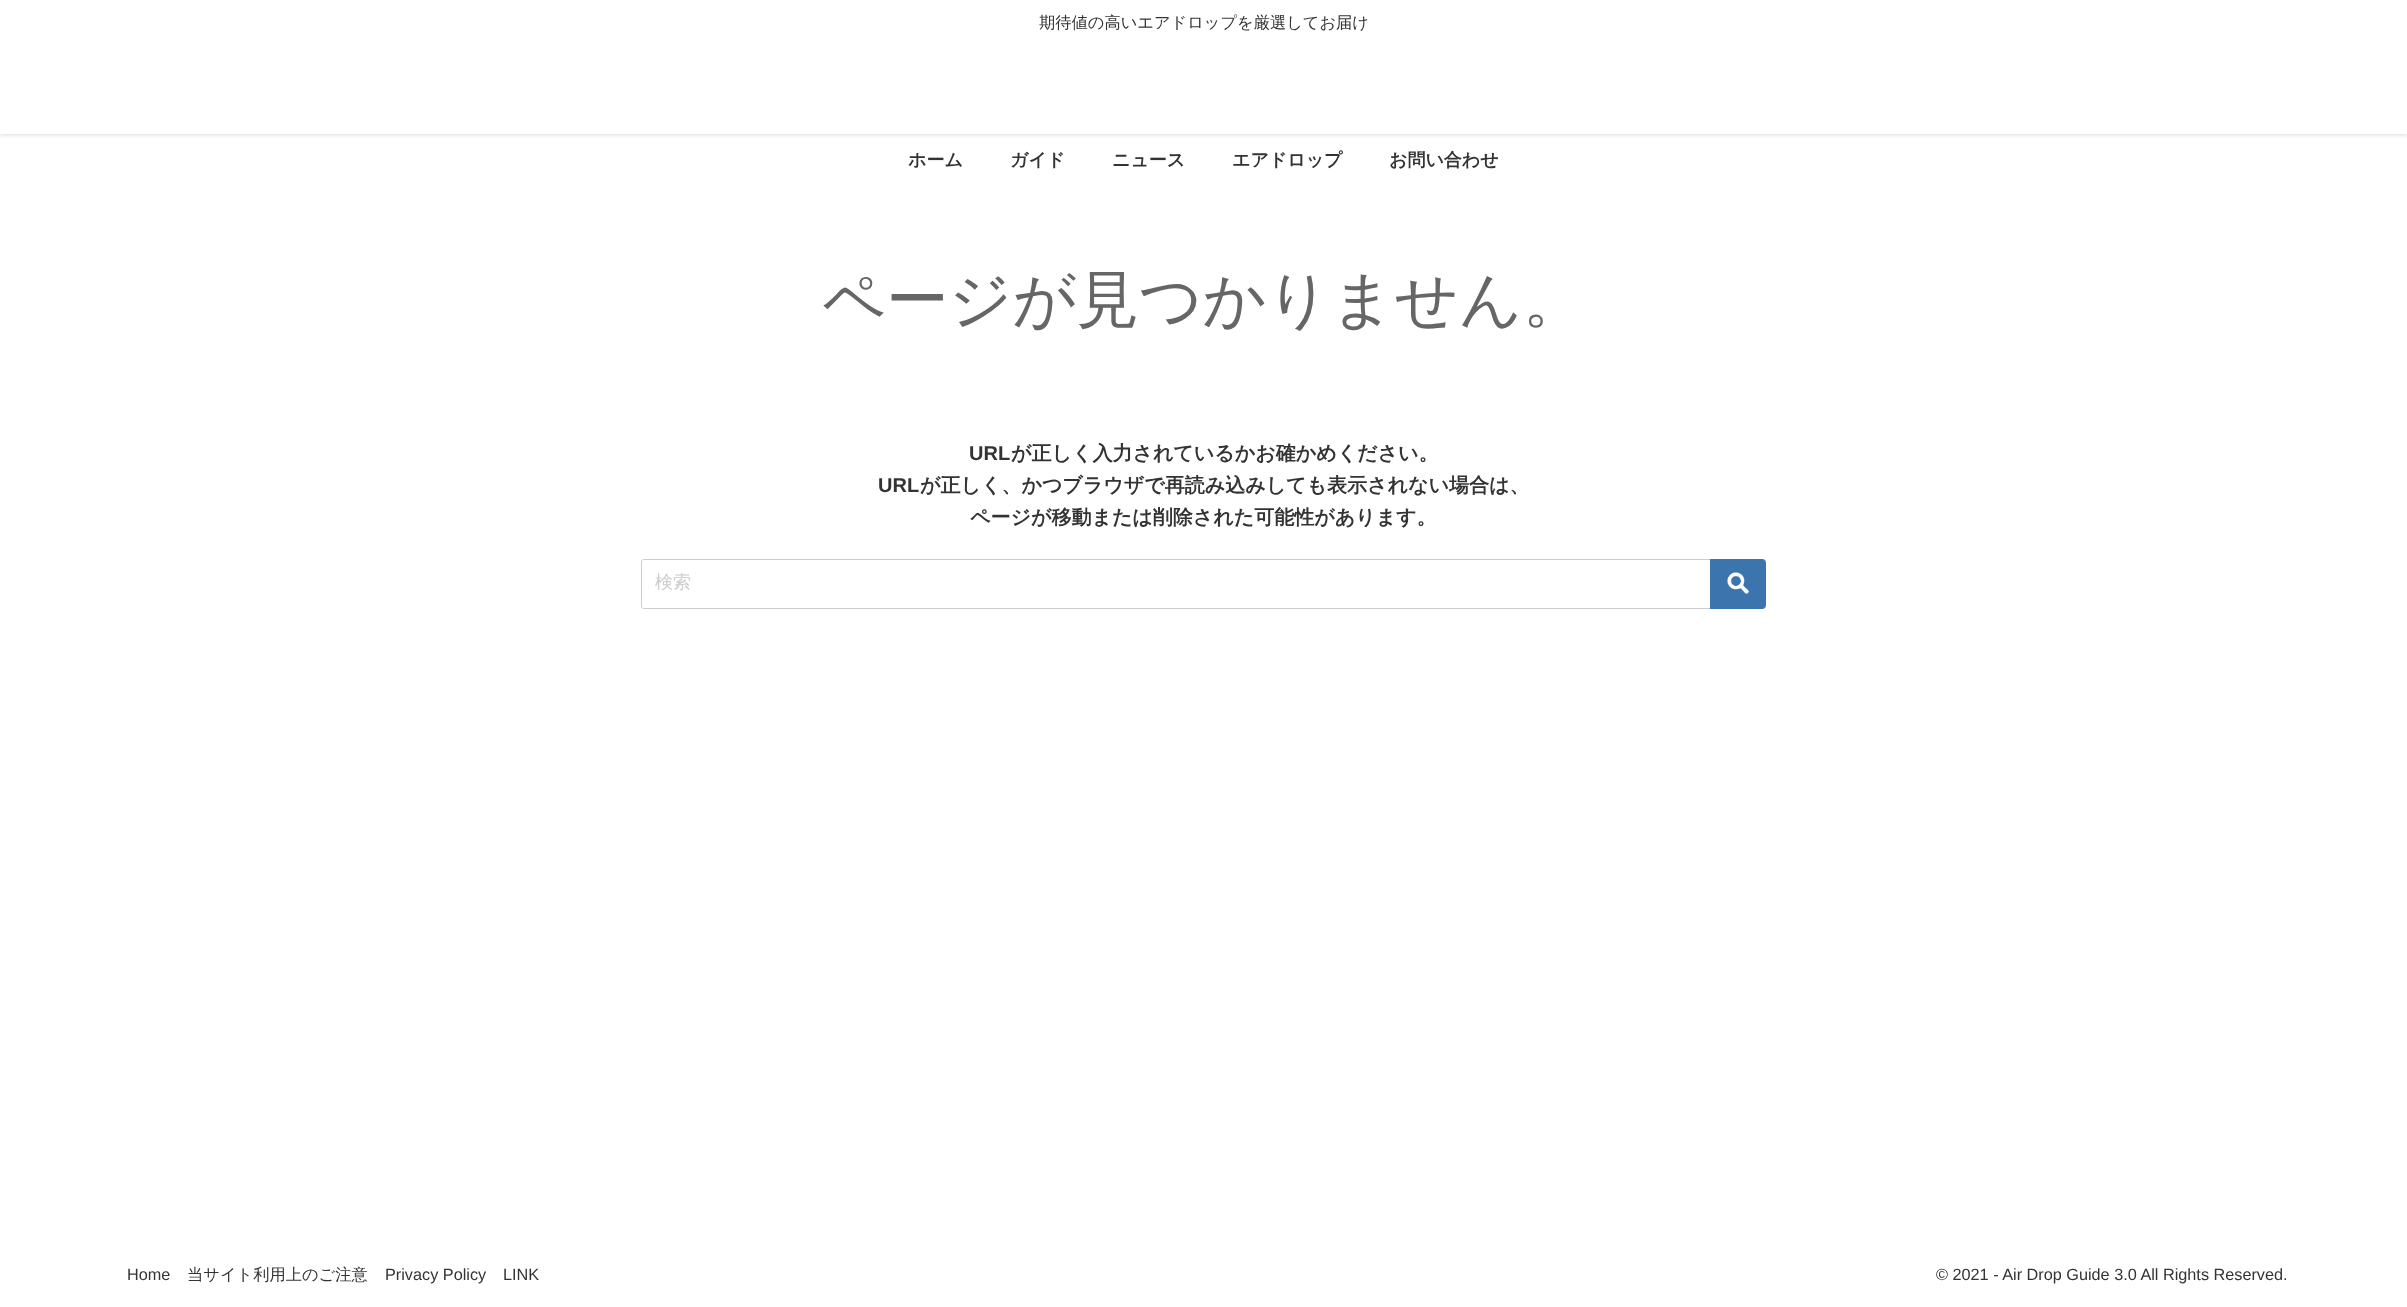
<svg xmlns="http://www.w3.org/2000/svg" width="2407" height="1307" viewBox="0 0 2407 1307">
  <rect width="100%" height="100%" fill="rgb(255,255,255)"/>
  <rect x="0" y="0" width="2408" height="134" fill="rgba(0,0,0,0.2)" filter="blur(2.5px)"/>
  <rect x="0" y="0" width="2407" height="134" fill="rgb(255,255,255)"/>
  <text x="1039" y="28" font-family="WenQuanYi Zen Hei" font-size="16.25" font-weight="500" fill="rgb(51,51,51)">期待値の高いエアドロップを厳選してお届け</text>
  <g font-family="WenQuanYi Zen Hei" font-size="18" font-weight="bold" fill="rgb(51,51,51)">
    <text x="908" y="166">ホーム</text>
    <text x="1010" y="166">ガイド</text>
    <text x="1112" y="166">ニュース</text>
    <text x="1232" y="166">エアドロップ</text>
    <text x="1389" y="166">お問い合わせ</text>
  </g>
  <text x="822" y="321" font-family="WenQuanYi Zen Hei" font-size="62.5" font-weight="500" fill="rgb(102,102,102)">ページが見つかりません。</text>
  <text x="969" y="460" font-family="Liberation Sans" font-size="20" font-weight="bold" fill="rgb(51,51,51)">URL</text>
  <text x="1011" y="460" font-family="WenQuanYi Zen Hei" font-size="20" font-weight="bold" fill="rgb(51,51,51)">が正しく入力されているかお確かめください。</text>
  <text x="878" y="492" font-family="Liberation Sans" font-size="20" font-weight="bold" fill="rgb(51,51,51)">URL</text>
  <g font-family="WenQuanYi Zen Hei" font-size="20" font-weight="bold" fill="rgb(51,51,51)">
    <text x="920" y="492">が正しく、かつブラウザで再読み込みしても表示されない場合は、</text>
    <text x="970" y="524">ページが移動または削除された可能性があります。</text>
  </g>
  <rect x="641.5" y="559.5" width="1124" height="49" rx="2" fill="none" stroke="rgb(204,204,204)"/>
  <text x="655" y="588" font-family="WenQuanYi Zen Hei" font-size="18" font-weight="500" fill="rgb(204,204,204)">検索</text>
  <path d="M1710 559H1762C1764 559 1766 561 1766 563V605C1766 607 1764 609 1762 609H1710Z" fill="rgb(60,116,173)"/>
  <image x="1727" y="572" width="22" height="22" href="pic1.png"/>
  <text x="127" y="1280" font-family="Liberation Sans" font-size="16.25" fill="rgb(51,51,51)">Home</text>
  <text x="187" y="1280" font-family="WenQuanYi Zen Hei" font-size="16.25" font-weight="500" fill="rgb(51,51,51)">当サイト利用上のご注意</text>
  <g font-family="Liberation Sans" font-size="16.25" fill="rgb(51,51,51)">
    <text x="385" y="1280">Privacy Policy</text>
    <text x="503" y="1280">LINK</text>
    <text x="1936" y="1280">©︎ 2021 - Air Drop Guide 3.0 All Rights Reserved.</text>
  </g>
</svg>
